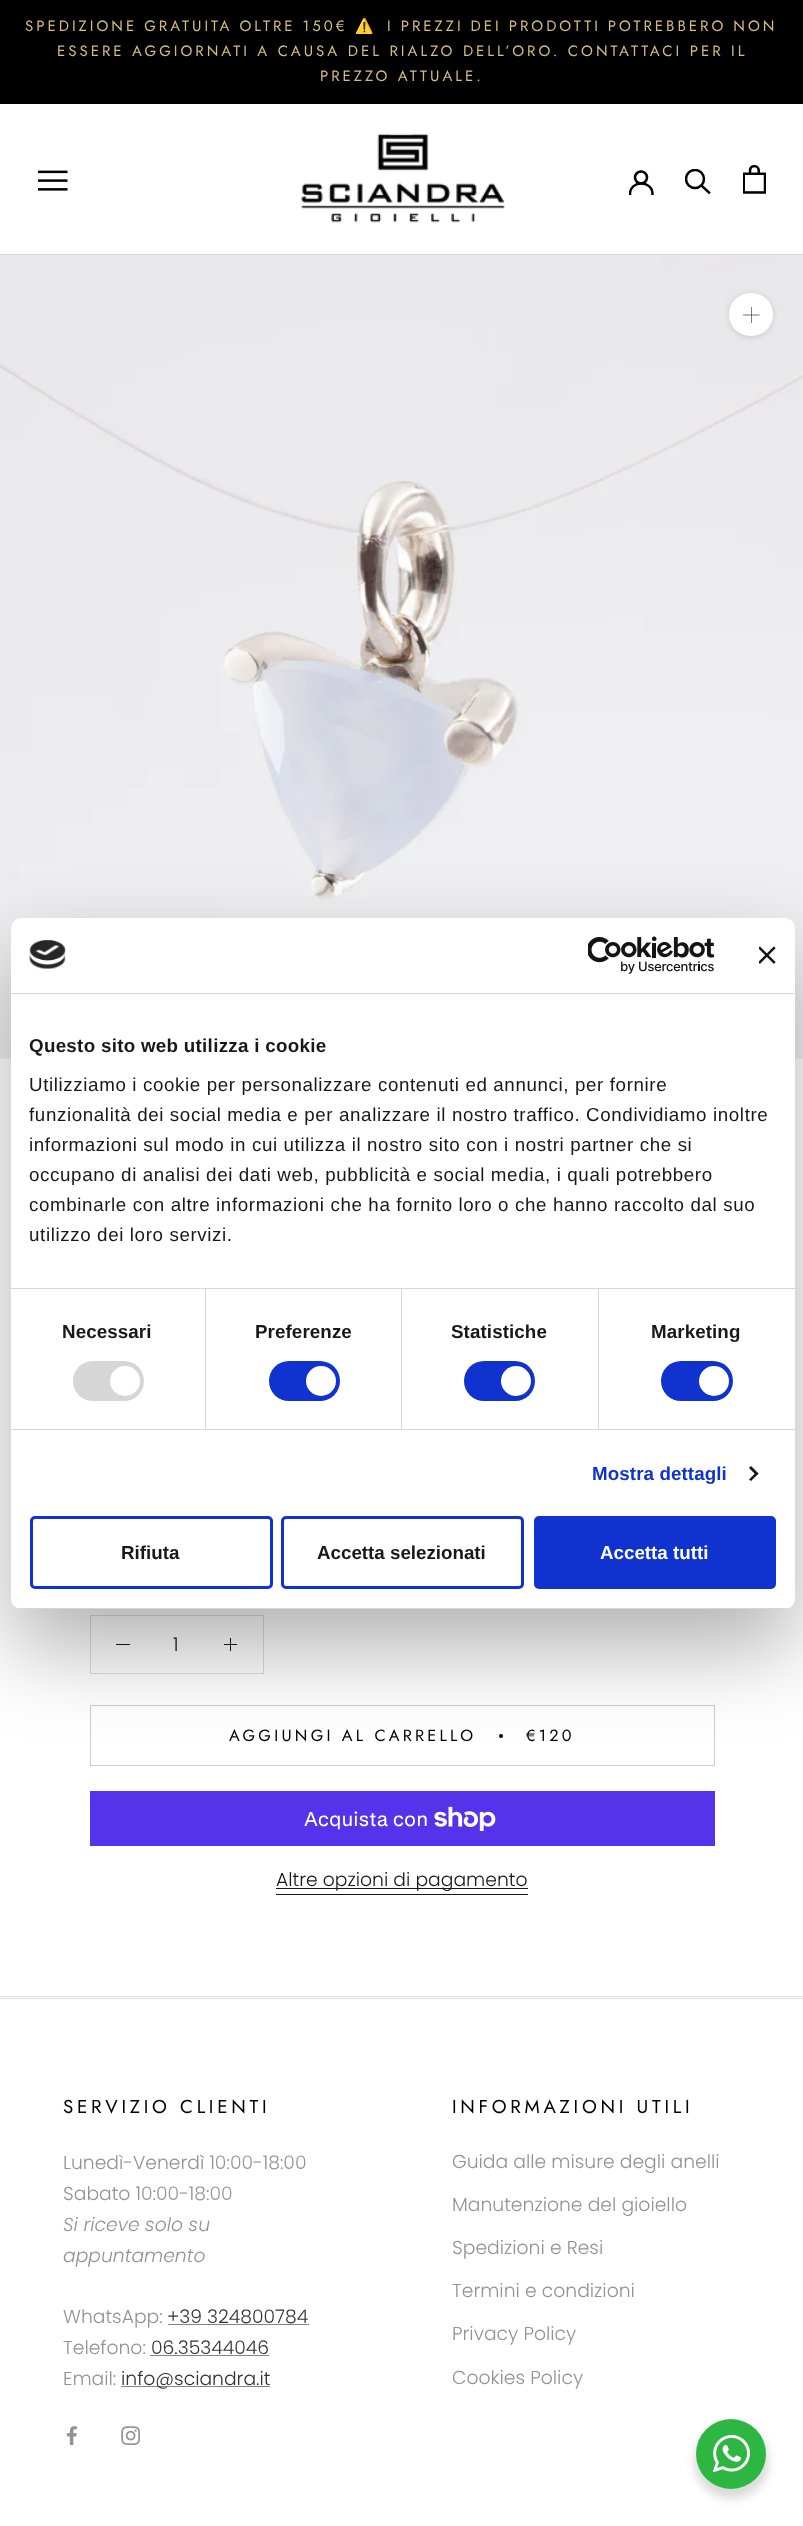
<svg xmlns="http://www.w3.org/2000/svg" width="803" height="2526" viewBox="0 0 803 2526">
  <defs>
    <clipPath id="clip1"><rect x="629" y="170" width="25" height="25"/></clipPath>
    <clipPath id="clip2"><rect x="685" y="169" width="26" height="26"/></clipPath>
    <clipPath id="clip3"><rect x="11" y="918" width="784" height="691" rx="10"/></clipPath>
  </defs>
  <rect width="100%" height="100%" fill="rgb(255,255,255)"/>
  <rect x="0" y="0" width="803" height="104" fill="rgb(0,0,0)"/>
  <text x="25" y="31" word-spacing="-0.5" font-family="Jost" font-size="15" letter-spacing="3" fill="rgb(214,189,128)">SPEDIZIONE GRATUITA OLTRE 150€</text>
  <text x="355" y="31" font-family="Noto Color Emoji" font-size="15" letter-spacing="3" fill="rgb(214,189,128)">⚠️</text>
  <g font-family="Jost" font-size="15" letter-spacing="3" fill="rgb(214,189,128)">
    <text x="387" y="31" word-spacing="-0.5">I PREZZI DEI PRODOTTI POTREBBERO NON</text>
    <text x="57" y="56">ESSERE AGGIORNATI A CAUSA DEL RIALZO DELL’ORO. CONTATTACI PER IL</text>
    <text x="320" y="81">PREZZO ATTUALE.</text>
  </g>
  <rect x="0" y="254" width="803" height="1" fill="rgb(217,217,217)"/>
  <image x="38" y="170" width="30" height="21" href="pic1.png"/>
  <image x="301" y="133" width="204" height="90" href="pic2.png"/>
  <g clip-path="url(#clip1)">
    <path d="M630 194C630 180 652.5 180 652.5 194" fill="none" stroke="rgb(0,0,0)" stroke-width="2.5" stroke-linecap="square"/>
  </g>
  <circle cx="641" cy="177.5" r="6" fill="none" stroke="rgb(0,0,0)" stroke-width="2.5"/>
  <path d="M709 192.5L701.5 185.5" fill="none" stroke="rgb(0,0,0)" stroke-width="2.5" stroke-linecap="square"/>
  <g clip-path="url(#clip2)">
    <circle cx="695" cy="179" r="9" fill="none" stroke="rgb(0,0,0)" stroke-width="2.5"/>
  </g>
  <image x="743" y="165" width="23" height="29" href="pic3.png"/>
  <image x="0" y="255" width="803" height="804" href="pic4.png"/>
  <rect x="729" y="294" width="44" height="44" rx="22" fill="rgba(54,54,54,0.15)" filter="blur(3px)"/>
  <rect x="729" y="293" width="44" height="43" rx="21.5" fill="rgb(255,255,255)"/>
  <rect x="751" y="307" width="1" height="16" fill="rgb(128,128,128)"/>
  <path d="M743.5 315H759" fill="none" stroke="rgba(0,0,0,0.5)" stroke-width="1.1" stroke-linecap="square"/>
  <rect x="90.5" y="1615.5" width="173" height="58" fill="none" stroke="rgb(220,220,220)"/>
  <rect x="116" y="1644" width="14" height="1" fill="rgb(24,24,24)"/>
  <text x="173" y="1651" font-family="Poppins" font-size="18.75" font-weight="300" fill="rgb(24,24,24)">1</text>
  <rect x="230" y="1638" width="1" height="13" fill="rgb(24,24,24)"/>
  <rect x="224" y="1644" width="13" height="1" fill="rgb(24,24,24)"/>
  <rect x="90.5" y="1705.5" width="624" height="60" fill="none" stroke="rgb(204,204,204)"/>
  <text x="229" y="1741" font-family="Jost" font-size="16.25" letter-spacing="3.25" fill="rgb(0,0,0)">AGGIUNGI AL CARRELLO</text>
  <circle cx="501" cy="1736" r="2" fill="rgb(0,0,0)"/>
  <text x="526" y="1741" font-family="Jost" font-size="16.25" letter-spacing="3.25" fill="rgb(0,0,0)">€120</text>
  <rect x="90" y="1791" width="625" height="55" fill="rgb(84,51,235)"/>
  <text x="304" y="1826" font-family="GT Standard" font-size="20" fill="rgb(255,255,255)">Acquista con</text>
  <image x="434" y="1806" width="62" height="25" href="pic5.png"/>
  <rect x="276" y="1888" width="252" height="1" fill="rgb(24,24,24)"/>
  <text x="276" y="1886" font-family="Poppins" font-size="18.75" font-weight="300" fill="rgb(24,24,24)">Altre opzioni di pagamento</text>
  <rect x="276" y="1894" width="252" height="1" fill="rgb(24,24,24)"/>
  <rect x="0" y="1996" width="803" height="1" fill="rgb(220,220,220)"/>
  <rect x="0" y="1998" width="803" height="1" fill="rgb(220,220,220)"/>
  <text x="63" y="2113" font-family="Jost" font-size="18.75" letter-spacing="3.75" fill="rgb(0,0,0)">SERVIZIO CLIENTI</text>
  <g font-family="Poppins" font-size="18.75" font-weight="300" fill="rgb(147,147,147)">
    <text>
      <tspan x="63" y="2169">Lunedì-Venerdì 10:00-18:00</tspan>
      <tspan x="63" y="2200">Sabato 10:00-18:00</tspan>
    </text>
  </g>
  <g font-family="Poppins" font-size="18.75" font-weight="300" font-style="italic" fill="rgb(147,147,147)">
    <text>
      <tspan x="63" y="2231">Si riceve solo su</tspan>
      <tspan x="63" y="2262">appuntamento</tspan>
    </text>
  </g>
  <text x="63" y="2323" font-family="Poppins" font-size="18.75" font-weight="300" fill="rgb(147,147,147)">WhatsApp:</text>
  <text x="167" y="2323" font-family="Poppins" font-size="18.75" font-weight="300" fill="rgb(50,50,50)">+39 324800784</text>
  <rect x="168" y="2324" width="141" height="1" fill="rgb(132,132,132)"/>
  <text x="63" y="2354" font-family="Poppins" font-size="18.75" font-weight="300" fill="rgb(147,147,147)">Telefono:</text>
  <text x="151" y="2354" font-family="Poppins" font-size="18.75" font-weight="300" fill="rgb(50,50,50)">06.35344046</text>
  <rect x="150" y="2355" width="119" height="1" fill="rgb(132,132,132)"/>
  <text x="63" y="2385" font-family="Poppins" font-size="18.75" font-weight="300" fill="rgb(147,147,147)">Email:</text>
  <rect x="121" y="2386" width="149" height="1" fill="rgb(132,132,132)"/>
  <text x="121" y="2385" font-family="Poppins" font-size="18.75" font-weight="300" fill="rgb(50,50,50)">info@sciandra.it</text>
  <image x="66" y="2426" width="11" height="19" href="pic6.png"/>
  <image x="121" y="2426" width="19" height="19" href="pic7.png"/>
  <text x="452" y="2113" font-family="Jost" font-size="18.75" letter-spacing="3.75" fill="rgb(0,0,0)">INFORMAZIONI UTILI</text>
  <g font-family="Poppins" font-size="18.75" font-weight="300" fill="rgb(147,147,147)">
    <text x="452" y="2168">Guida alle misure degli anelli</text>
    <text x="452" y="2211">Manutenzione del gioiello</text>
    <text x="452" y="2254">Spedizioni e Resi</text>
    <text x="452" y="2297">Termini e condizioni</text>
    <text x="452" y="2340">Privacy Policy</text>
    <text x="452" y="2384">Cookies Policy</text>
  </g>
  <rect x="11" y="958" width="784" height="691" rx="10" fill="rgba(0,0,0,0.3)" filter="blur(42.5px)"/>
  <rect x="11" y="918" width="784" height="691" rx="10" fill="rgb(255,255,255)"/>
  <rect x="11" y="993" width="784" height="1" fill="rgb(214,214,214)"/>
  <image x="29" y="940" width="37" height="29" href="pic8.png"/>
  <image x="588" y="936" width="127" height="38" href="pic9.png"/>
  <image x="759" y="946" width="17" height="18" href="pic10.png"/>
  <rect x="11" y="1288" width="784" height="1" fill="rgb(214,214,214)"/>
  <text x="29" y="1052" font-family="Liberation Sans" font-size="18.75" font-weight="bold" letter-spacing="0.3" fill="rgb(24,24,24)">Questo sito web utilizza i cookie</text>
  <g font-family="Liberation Sans" font-size="18.75" letter-spacing="0.62" fill="rgb(24,24,24)">
    <text>
      <tspan x="29" y="1091">Utilizziamo i cookie per personalizzare contenuti ed annunci, per fornire</tspan>
      <tspan x="29" y="1121">funzionalità dei social media e per analizzare il nostro traffico. Condividiamo inoltre</tspan>
      <tspan x="29" y="1151">informazioni sul modo in cui utilizza il nostro sito con i nostri partner che si</tspan>
      <tspan x="29" y="1181">occupano di analisi dei dati web, pubblicità e social media, i quali potrebbero</tspan>
      <tspan x="29" y="1211">combinarle con altre informazioni che ha fornito loro o che hanno raccolto dal suo</tspan>
      <tspan x="29" y="1241">utilizzo dei loro servizi.</tspan>
    </text>
  </g>
  <rect x="11" y="1429" width="784" height="1" fill="rgb(214,214,214)"/>
  <rect x="205" y="1289" width="1" height="140" fill="rgb(214,214,214)"/>
  <text x="62" y="1338" font-family="Liberation Sans" font-size="18.75" font-weight="bold" letter-spacing="0.1" fill="rgb(24,24,24)">Necessari</text>
  <rect x="73" y="1361" width="71" height="40" rx="20" fill="rgb(214,214,214)"/>
  <circle cx="125" cy="1381" r="15" fill="rgb(255,255,255)"/>
  <rect x="401" y="1289" width="1" height="140" fill="rgb(214,214,214)"/>
  <text x="255" y="1338" font-family="Liberation Sans" font-size="18.75" font-weight="bold" letter-spacing="0.1" fill="rgb(24,24,24)">Preferenze</text>
  <rect x="269" y="1361" width="71" height="40" rx="20" fill="rgb(16,50,207)"/>
  <circle cx="321" cy="1381" r="15" fill="rgb(255,255,255)"/>
  <rect x="598" y="1289" width="1" height="140" fill="rgb(214,214,214)"/>
  <text x="451" y="1338" font-family="Liberation Sans" font-size="18.75" font-weight="bold" letter-spacing="0.1" fill="rgb(24,24,24)">Statistiche</text>
  <rect x="464" y="1361" width="71" height="40" rx="20" fill="rgb(16,50,207)"/>
  <circle cx="516" cy="1381" r="15" fill="rgb(255,255,255)"/>
  <text x="651" y="1338" font-family="Liberation Sans" font-size="18.75" font-weight="bold" letter-spacing="0.1" fill="rgb(24,24,24)">Marketing</text>
  <rect x="661" y="1361" width="72" height="40" rx="20" fill="rgb(16,50,207)"/>
  <circle cx="714" cy="1381" r="15" fill="rgb(255,255,255)"/>
  <text x="592" y="1480" font-family="Liberation Sans" font-size="18.75" font-weight="bold" letter-spacing="0.1" fill="rgb(16,50,207)">Mostra dettagli</text>
  <path d="M751 1466L758.5 1473.5L756.5 1475.5L749 1468Z" fill="rgb(20,20,20)"/>
  <path d="M756.5 1472L758.5 1473.5L751 1481L749 1479.5Z" fill="rgb(20,20,20)"/>
  <g clip-path="url(#clip3)">
    <rect x="11" y="1608" width="784" height="1" fill="rgb(214,214,214)"/>
  </g>
  <rect x="31.5" y="1517.5" width="240" height="70" rx="3.5" fill="none" stroke="rgb(16,50,207)" stroke-width="3"/>
  <text x="121" y="1559" font-family="Liberation Sans" font-size="18.75" font-weight="bold" fill="rgb(24,24,24)">Rifiuta</text>
  <rect x="282.5" y="1517.5" width="240" height="70" rx="3.5" fill="none" stroke="rgb(16,50,207)" stroke-width="3"/>
  <text x="317" y="1559" font-family="Liberation Sans" font-size="18.75" font-weight="bold" fill="rgb(24,24,24)">Accetta selezionati</text>
  <rect x="535.5" y="1517.5" width="239" height="70" rx="3.5" fill="rgb(16,50,207)" stroke="rgb(16,50,207)" stroke-width="3"/>
  <text x="600" y="1559" font-family="Liberation Sans" font-size="18.75" font-weight="bold" fill="rgb(255,255,255)">Accetta tutti</text>
  <rect x="694" y="2424" width="75" height="75" rx="37.5" fill="rgba(0,0,0,0.14)" filter="blur(5px)"/>
  <circle cx="731" cy="2454" r="35" fill="rgb(45,183,66)"/>
  <image x="713" y="2435" width="37" height="38" href="pic11.png"/>
</svg>
